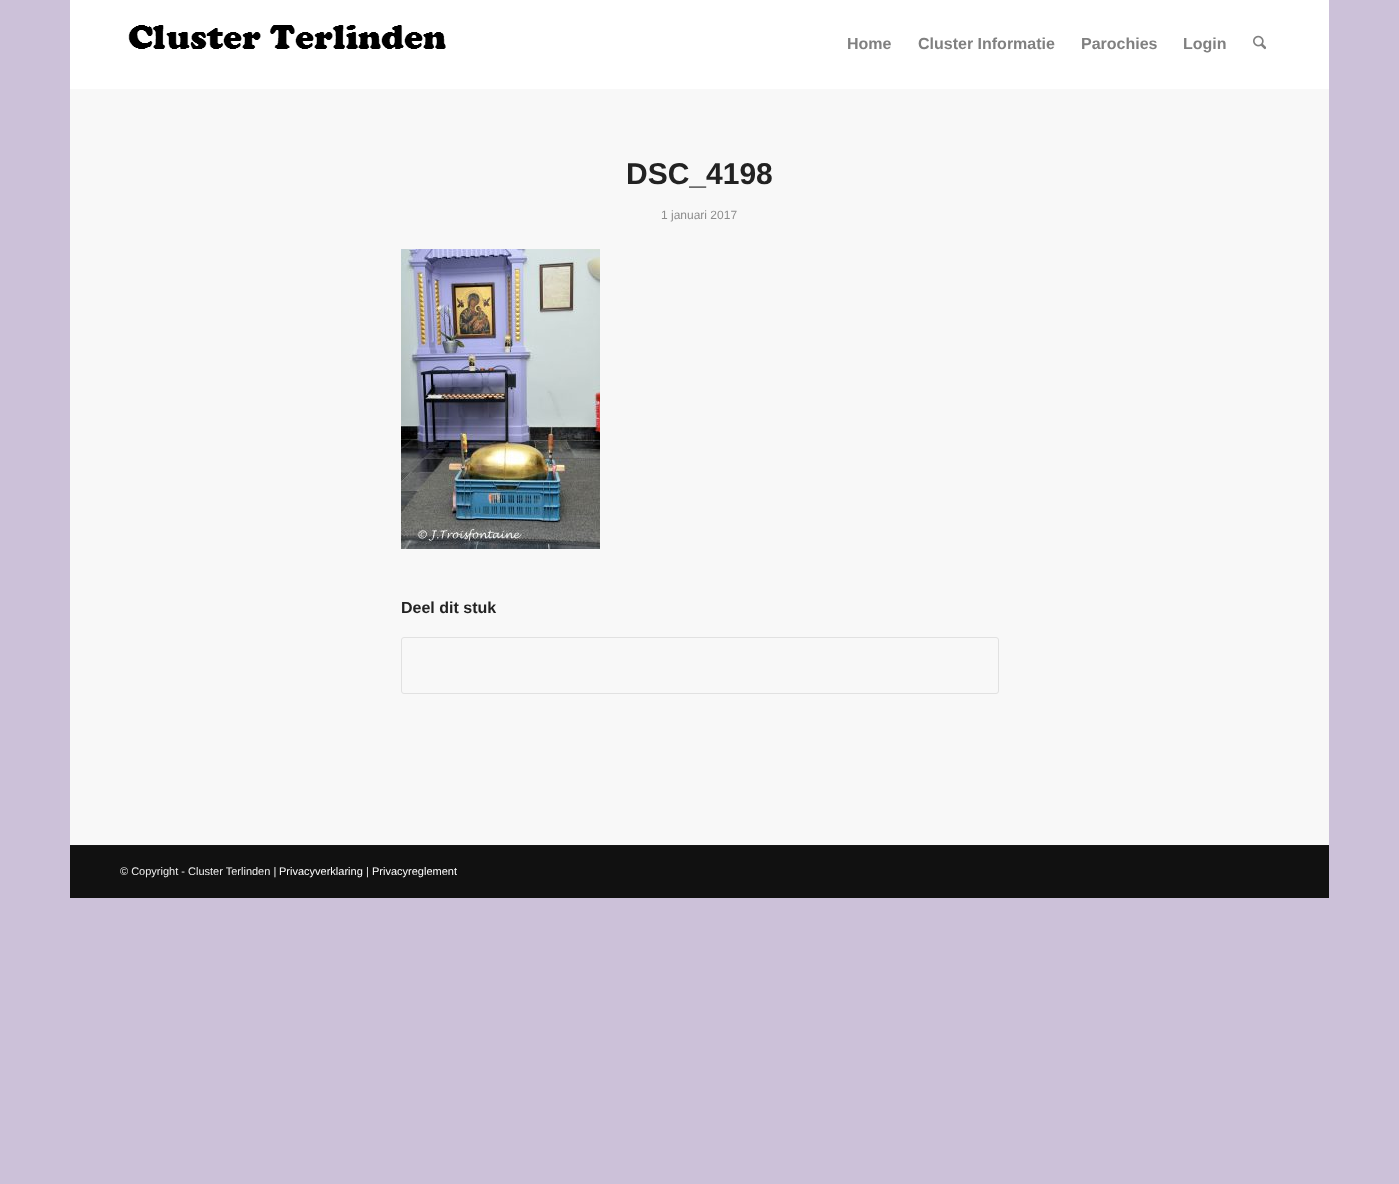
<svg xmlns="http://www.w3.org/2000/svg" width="1399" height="1184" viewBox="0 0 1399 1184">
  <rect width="100%" height="100%" fill="rgb(204,193,217)"/>
  <rect x="70" y="0" width="1259" height="89" fill="rgb(255,255,255)"/>
  <image x="128" y="25" width="318" height="24" href="pic1.png"/>
  <g font-family="Liberation Sans" font-size="16" font-weight="bold" fill="rgb(128,128,128)">
    <text x="847" y="49">Home</text>
    <text x="918" y="49">Cluster Informatie</text>
    <text x="1081" y="49">Parochies</text>
    <text x="1183" y="49">Login</text>
  </g>
  <image x="1253" y="35" width="13" height="15" href="pic2.png"/>
  <rect x="70" y="89" width="1259" height="756" fill="rgb(248,248,248)"/>
  <text x="626" y="184" font-family="Liberation Sans" font-size="30" font-weight="bold" fill="rgb(34,34,34)">DSC_4198</text>
  <text x="661" y="219" font-family="Liberation Sans" font-size="12" fill="rgb(141,141,141)">1 januari 2017</text>
  <image x="401" y="249" width="199" height="300" href="pic3.png"/>
  <text x="401" y="613" font-family="Liberation Sans" font-size="16" font-weight="bold" fill="rgb(34,34,34)">Deel dit stuk</text>
  <rect x="401.5" y="637.5" width="597" height="56" rx="2.5" fill="none" stroke="rgb(225,225,225)"/>
  <rect x="70" y="846" width="1259" height="52" fill="rgb(17,17,17)"/>
  <rect x="70" y="845" width="1259" height="1" fill="rgb(22,22,22)"/>
  <text x="120" y="875" font-family="Liberation Sans" font-size="11" fill="rgb(238,238,238)">© Copyright - Cluster Terlinden |</text>
  <text x="279" y="875" font-family="Liberation Sans" font-size="11" fill="rgb(255,255,255)">Privacyverklaring</text>
  <text x="366" y="875" font-family="Liberation Sans" font-size="11" fill="rgb(238,238,238)">|</text>
  <text x="372" y="875" font-family="Liberation Sans" font-size="11" fill="rgb(255,255,255)">Privacyreglement</text>
</svg>
